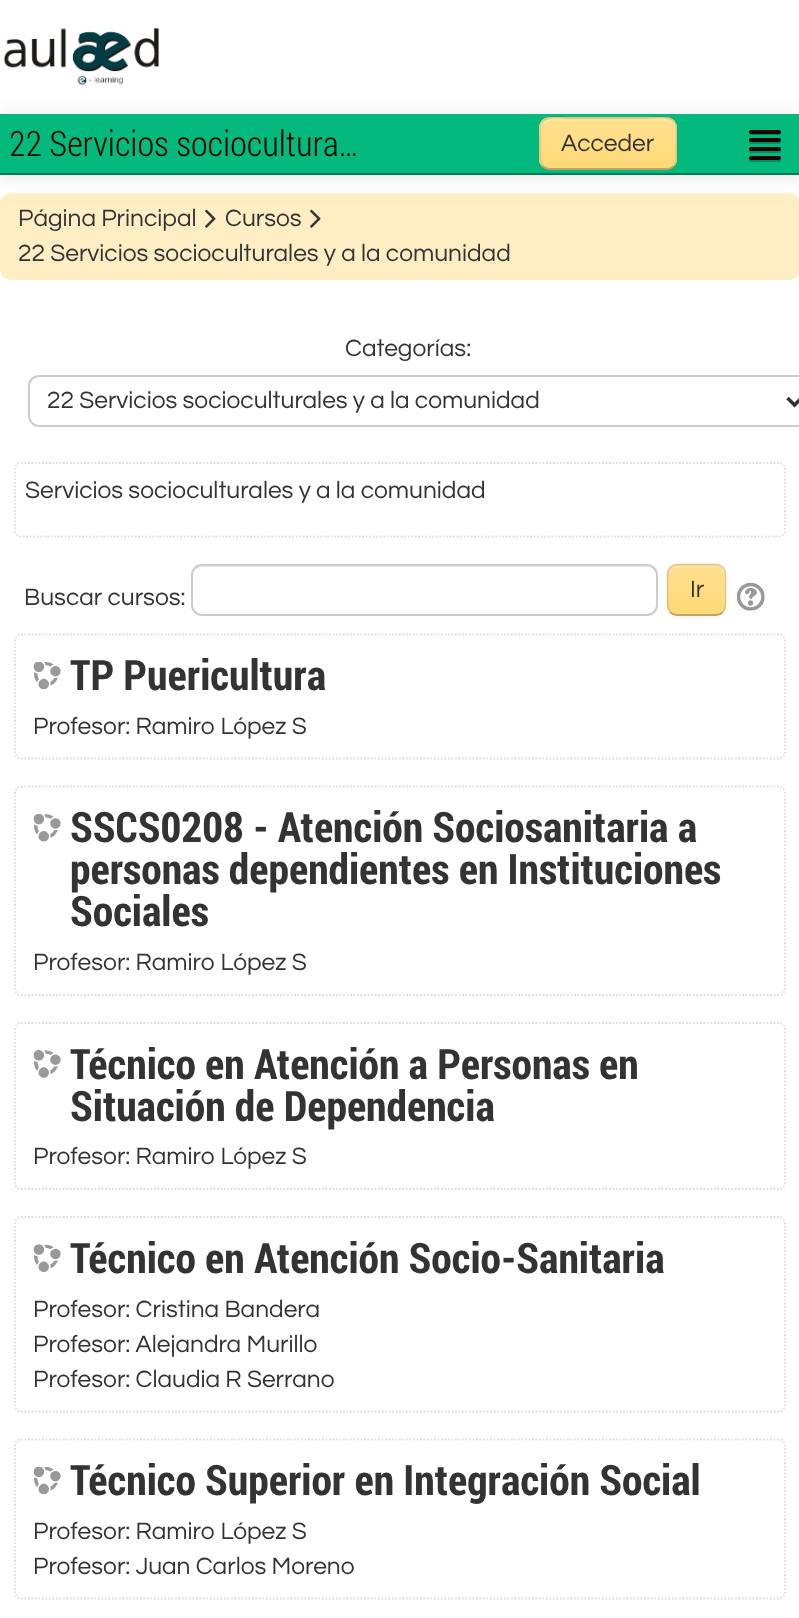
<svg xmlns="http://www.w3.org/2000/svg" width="799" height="1618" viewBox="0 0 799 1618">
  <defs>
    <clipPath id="clip1"><rect x="539" y="117" width="138" height="53" rx="11"/></clipPath>
    <linearGradient id="g1" gradientUnits="userSpaceOnUse" x1="608" y1="119" x2="608" y2="168"><stop offset="0" stop-color="rgb(255,224,144)"/><stop offset="1" stop-color="rgb(255,217,119)"/></linearGradient>
    <clipPath id="clip2"><rect x="667" y="564" width="59" height="52" rx="11"/></clipPath>
    <linearGradient id="g2" gradientUnits="userSpaceOnUse" x1="697" y1="565" x2="697" y2="614"><stop offset="0" stop-color="rgb(255,224,144)"/><stop offset="1" stop-color="rgb(255,217,119)"/></linearGradient>
  </defs>
  <rect width="100%" height="100%" fill="rgb(255,255,255)"/>
  <image x="3" y="28" width="156" height="58" href="pic1.png"/>
  <rect x="0" y="116" width="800" height="61" fill="rgba(0,0,0,0.1)" filter="blur(9px)"/>
  <rect x="0" y="114" width="799" height="59" fill="rgb(3,185,125)"/>
  <rect x="0" y="173" width="799" height="2" fill="rgb(2,125,84)"/>
  <text x="9" y="156" font-family="Roboto Condensed" font-size="35" font-weight="300" fill="rgb(25,5,0)">22 Servicios sociocultura…</text>
  <rect x="539" y="117" width="138" height="53" rx="11" fill="rgb(255,221,134)"/>
  <g clip-path="url(#clip1)">
    <rect x="539" y="119" width="138" height="49" fill="url(#g1)"/>
  </g>
  <path d="M550 121H667C672 121 676 125 676 130C676 114 659 119 648 119H570C558 119 541 114 541 130C541 125 545 121 550 121Z" fill="rgba(255,255,255,0.2)"/>
  <path d="M673.5 166C672 168 669.5 169 667 169H549.5C547 169 544.5 168 542.5 166" fill="none" stroke="rgba(0,0,0,0.25)" stroke-width="1.8"/>
  <path d="M542.5 166C539.5 162.5 540 158.5 540 154V127C541 113.5 562.5 118 569 118H647C654 118 675 113.5 676.5 127V154C676.5 158.5 677 162.5 673.5 166" fill="none" stroke="rgba(0,0,0,0.1)" stroke-width="1.8"/>
  <text x="561" y="151" font-family="Questrial" font-size="24.5" fill="rgb(51,51,51)">Acceder</text>
  <path d="M749 132C747.5 136 755 135 755.5 135H774.5C775.5 135 780.5 136 781 133.5C781 133 781 132 780.5 131.5C780.5 132.5 779.5 133 779 133H751C750 133 749.5 132.5 749 132Z" fill="rgb(2,139,94)"/>
  <rect x="749" y="130" width="32" height="4" rx="2" fill="rgb(25,5,0)"/>
  <path d="M749.5 141C747 145 755 144 755.5 144H765C767.5 144 779 144.5 780.5 143.5C781 142.5 781 141.5 780.5 140.5L779.5 141.5H750.5Z" fill="rgb(2,139,94)"/>
  <rect x="749" y="138" width="32" height="4" rx="2" fill="rgb(25,5,0)"/>
  <path d="M749.5 150L749 151.5C749.5 154 754.5 153 755.5 153H774.5C776 153 781 154 781 151L780.5 149.5C780 150 779.5 150.5 779 150.5H750.5Z" fill="rgb(2,139,94)"/>
  <rect x="749" y="147" width="32" height="4" rx="2" fill="rgb(25,5,0)"/>
  <path d="M749.5 158.5C749 159 749 160 749 160.5C749.5 163 754.5 162 755.5 162H779C781 162 781.5 159.5 780 158.5L779 159H750.5Z" fill="rgb(2,139,94)"/>
  <rect x="749" y="156" width="32" height="4" rx="2" fill="rgb(25,5,0)"/>
  <rect x="0" y="193" width="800" height="87" rx="11" fill="rgb(255,238,196)"/>
  <text x="18" y="226" font-family="Questrial" font-size="24.5" fill="rgb(51,51,51)">Página Principal</text>
  <image x="205" y="209" width="11" height="19" href="pic2.png"/>
  <text x="225" y="226" font-family="Questrial" font-size="24.5" fill="rgb(51,51,51)">Cursos</text>
  <image x="310" y="209" width="11" height="19" href="pic2.png"/>
  <g font-family="Questrial" font-size="24.5" fill="rgb(51,51,51)">
    <text x="18" y="261">22 Servicios socioculturales y a la comunidad</text>
    <text x="345" y="356">Categorías:</text>
  </g>
  <rect x="29" y="376" width="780" height="50" rx="10" fill="none" stroke="rgb(204,204,204)" stroke-width="2"/>
  <path d="M787.5 398L794.5 405L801.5 398" fill="none" stroke="rgb(51,51,51)" stroke-width="3.5"/>
  <text x="47" y="408" font-family="Questrial" font-size="24.5" fill="rgb(51,51,51)">22 Servicios socioculturales y a la comunidad</text>
  <path d="M21 463H779C782 463 785 465.5 785 469V530C785 533.5 782 536.5 779 536.5H21C17.5 536.5 15 533.5 15 530V469C15 465.5 17.5 463 21 463Z" fill="none" stroke="rgb(221,221,221)" stroke-width="1.8" stroke-dasharray="1.75 1.75"/>
  <g font-family="Questrial" font-size="24.5" fill="rgb(51,51,51)">
    <text x="25" y="498">Servicios socioculturales y a la comunidad</text>
    <text x="24" y="605">Buscar cursos:</text>
  </g>
  <path d="M201 567H648C652 567 656 571 656 576V574C656 569 652 565 647 565H202C198 565 195 567 194 571C195 569 198 567 201 567Z" fill="rgb(236,236,236)"/>
  <rect x="192" y="565" width="465" height="50" rx="10" fill="none" stroke="rgb(204,204,204)" stroke-width="2"/>
  <rect x="667" y="565" width="59" height="53" rx="11" fill="rgba(0,0,0,0.05)" filter="blur(2px)"/>
  <rect x="667" y="564" width="59" height="52" rx="11" fill="rgb(255,221,134)"/>
  <g clip-path="url(#clip2)">
    <rect x="667" y="565" width="59" height="49" fill="url(#g2)"/>
  </g>
  <path d="M677 567H718C726 569 724 580 724 586V610C725 608 725 607 725 605V574C725 569 721 565 716 565H678C674 565 671 567 670 571C671 569 674 567 677 567Z" fill="rgba(255,255,255,0.2)"/>
  <path d="M722.5 612.5C721 614 718.5 615 716 615H677C674.5 615 672 614 670.5 612.5" fill="none" stroke="rgba(0,0,0,0.25)" stroke-width="1.8"/>
  <path d="M670.5 612.5C667 609 667.5 604.5 667.5 600V573C668.5 564 677 564.5 683.5 564.5H709.5C716 564.5 724.5 564 725.5 573V600C725.5 604.5 726 609 722.5 612.5" fill="none" stroke="rgba(0,0,0,0.1)" stroke-width="1.8"/>
  <text x="690" y="597" font-family="Questrial" font-size="24.5" fill="rgb(51,51,51)">Ir</text>
  <image x="737" y="583" width="28" height="28" href="pic3.png"/>
  <path d="M21 634.5H779C782 634.5 785 637 785 640.5V752.5C785 756 782 758.5 779 758.5H21C17.5 758.5 15 756 15 752.5V640.5C15 637 17.5 634.5 21 634.5Z" fill="none" stroke="rgb(221,221,221)" stroke-width="1.8" stroke-dasharray="1.75 1.75"/>
  <image x="33" y="662" width="28" height="28" href="pic4.png"/>
  <text x="70" y="690" font-family="Roboto Condensed" font-size="42" font-weight="bold" fill="rgb(51,51,51)">TP Puericultura</text>
  <text x="33" y="734" font-family="Questrial" font-size="24.5" fill="rgb(51,51,51)">Profesor: Ramiro López S</text>
  <path d="M21 786.5H779C782 786.5 785 789.5 785 793V989C785 992 782 995 779 995H21C17.5 995 15 992 15 989V793C15 789.5 17.5 786.5 21 786.5Z" fill="none" stroke="rgb(221,221,221)" stroke-width="1.8" stroke-dasharray="1.75 1.75"/>
  <image x="33" y="814" width="28" height="28" href="pic5.png"/>
  <g font-family="Roboto Condensed" font-size="42" font-weight="bold" fill="rgb(51,51,51)">
    <text>
      <tspan x="70" y="842">SSCS0208 - Atención Sociosanitaria a</tspan>
      <tspan x="70" y="884">personas dependientes en Instituciones</tspan>
      <tspan x="70" y="926">Sociales</tspan>
    </text>
  </g>
  <text x="33" y="970" font-family="Questrial" font-size="24.5" fill="rgb(51,51,51)">Profesor: Ramiro López S</text>
  <path d="M21 1023H779C782 1023 785 1025.5 785 1029V1183C785 1186.5 782 1189 779 1189H21C17.5 1189 15 1186.5 15 1183V1029C15 1025.5 17.5 1023 21 1023Z" fill="none" stroke="rgb(221,221,221)" stroke-width="1.8" stroke-dasharray="1.75 1.75"/>
  <image x="33" y="1050" width="28" height="28" href="pic6.png"/>
  <g font-family="Roboto Condensed" font-size="42" font-weight="bold" fill="rgb(51,51,51)">
    <text>
      <tspan x="70" y="1079">Técnico en Atención a Personas en</tspan>
      <tspan x="70" y="1121">Situación de Dependencia</tspan>
    </text>
  </g>
  <text x="33" y="1164" font-family="Questrial" font-size="24.5" fill="rgb(51,51,51)">Profesor: Ramiro López S</text>
  <path d="M21 1217H779C782 1217 785 1220 785 1223V1405C785 1408.5 782 1411.5 779 1411.5H21C17.5 1411.5 15 1408.5 15 1405V1223C15 1220 17.5 1217 21 1217Z" fill="none" stroke="rgb(221,221,221)" stroke-width="1.8" stroke-dasharray="1.75 1.75"/>
  <image x="33" y="1244" width="28" height="28" href="pic7.png"/>
  <text x="70" y="1273" font-family="Roboto Condensed" font-size="42" font-weight="bold" fill="rgb(51,51,51)">Técnico en Atención Socio-Sanitaria</text>
  <g font-family="Questrial" font-size="24.5" fill="rgb(51,51,51)">
    <text>
      <tspan x="33" y="1317">Profesor: Cristina Bandera</tspan>
      <tspan x="33" y="1352">Profesor: Alejandra Murillo</tspan>
      <tspan x="33" y="1387">Profesor: Claudia R Serrano</tspan>
    </text>
  </g>
  <path d="M21 1439.5H779C782 1439.5 785 1442 785 1445.5V1592.5C785 1596 782 1598.5 779 1598.5H21C17.5 1598.5 15 1596 15 1592.5V1445.5C15 1442 17.5 1439.5 21 1439.5Z" fill="none" stroke="rgb(221,221,221)" stroke-width="1.8" stroke-dasharray="1.75 1.75"/>
  <image x="33" y="1467" width="28" height="28" href="pic4.png"/>
  <text x="70" y="1495" font-family="Roboto Condensed" font-size="42" font-weight="bold" fill="rgb(51,51,51)">Técnico Superior en Integración Social</text>
  <g font-family="Questrial" font-size="24.5" fill="rgb(51,51,51)">
    <text>
      <tspan x="33" y="1539">Profesor: Ramiro López S</tspan>
      <tspan x="33" y="1574">Profesor: Juan Carlos Moreno</tspan>
    </text>
  </g>
</svg>
